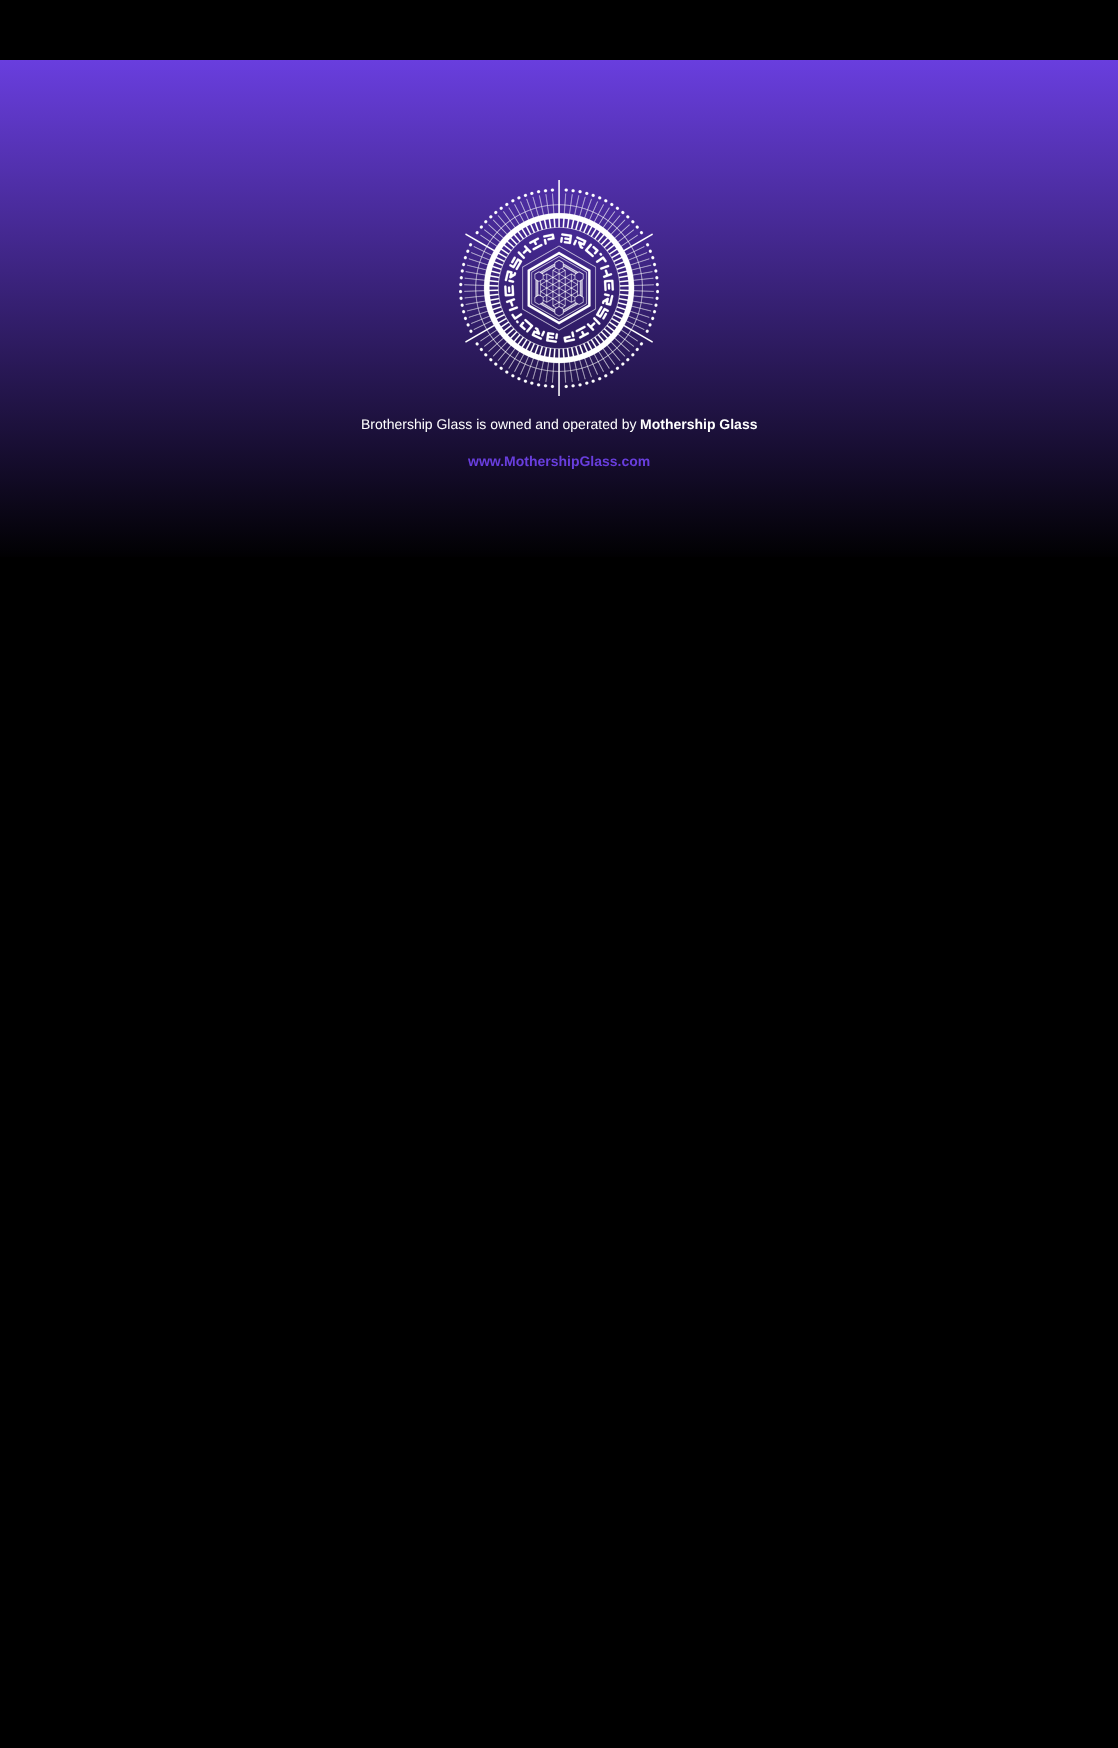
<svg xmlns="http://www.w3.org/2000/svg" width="1118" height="1748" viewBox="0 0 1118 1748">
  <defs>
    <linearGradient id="g1" gradientUnits="userSpaceOnUse" x1="559" y1="60" x2="559" y2="810"><stop offset="0" stop-color="rgb(105,62,222)"/><stop offset="0.67" stop-color="rgb(0,0,0)"/></linearGradient>
  </defs>
  <rect width="100%" height="100%" fill="rgb(0,0,0)"/>
  <rect x="0" y="60" width="1118" height="497" fill="url(#g1)"/>
  <image x="459" y="180" width="200" height="216" href="pic1.png"/>
  <text x="361" y="429" font-family="Liberation Sans" font-size="14" fill="rgb(255,255,255)">Brothership Glass is owned and operated by</text>
  <text x="640" y="429" font-family="Liberation Sans" font-size="14" font-weight="bold" fill="rgb(255,255,255)">Mothership Glass</text>
  <text x="468" y="466" font-family="Liberation Sans" font-size="14" font-weight="bold" fill="rgb(105,62,222)">www.MothershipGlass.com</text>
</svg>
